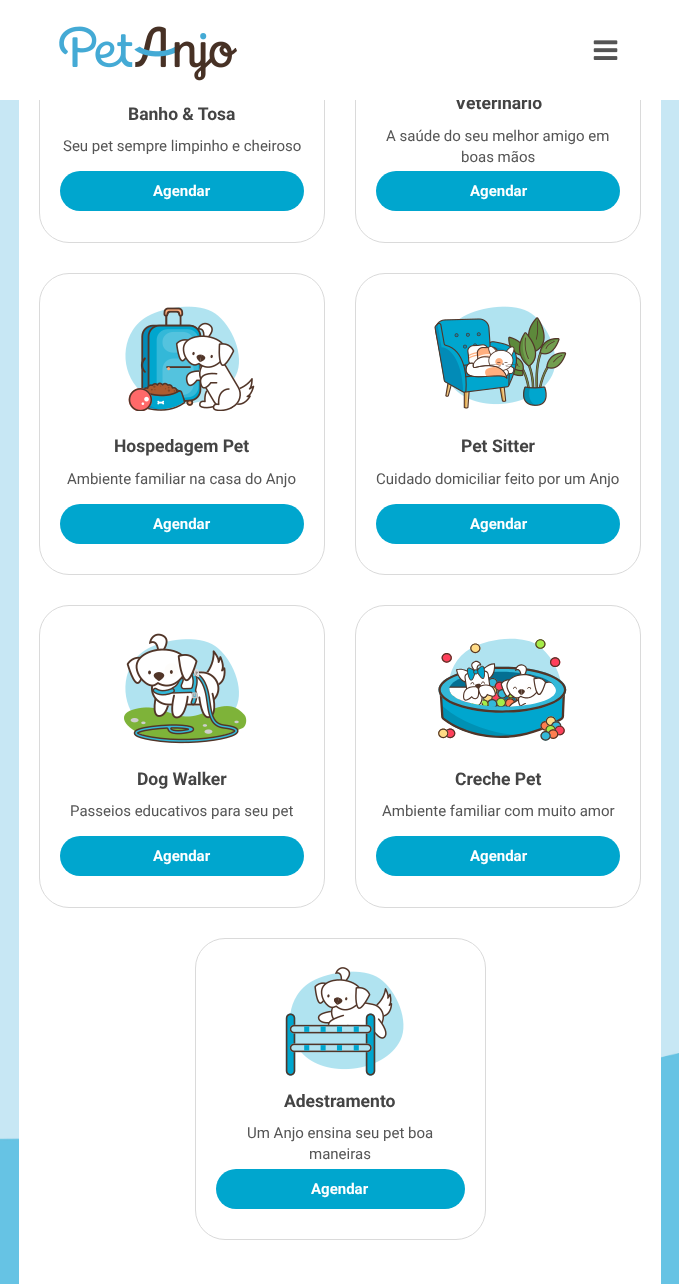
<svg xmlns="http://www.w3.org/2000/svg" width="679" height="1284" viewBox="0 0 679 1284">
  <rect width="100%" height="100%" fill="rgb(255,255,255)"/>
  <image x="0" y="100" width="679" height="1184" href="pic3.png"/>
  <rect x="19" y="100" width="642" height="1184" fill="rgb(255,255,255)"/>
  <rect x="39.5" y="-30.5" width="285" height="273" rx="29.5" fill="none" stroke="rgb(218,218,218)"/>
  <rect x="355.5" y="-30.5" width="285" height="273" rx="29.5" fill="none" stroke="rgb(218,218,218)"/>
  <text x="455" y="109" font-family="Roboto" font-size="17.5" font-weight="bold" fill="rgb(68,68,68)">Veterinário</text>
  <rect x="39" y="0" width="602" height="100" fill="rgb(255,255,255)"/>
  <image x="59" y="26" width="178" height="55" href="pic1.png"/>
  <image x="593" y="40" width="25" height="20" href="pic2.png"/>
  <text x="128" y="120" font-family="Roboto" font-size="17.5" font-weight="bold" fill="rgb(68,68,68)">Banho &amp; Tosa</text>
  <text x="63" y="151" font-family="Roboto" font-size="15" fill="rgb(85,85,85)">Seu pet sempre limpinho e cheiroso</text>
  <rect x="60" y="171" width="244" height="40" rx="20" fill="rgb(0,166,206)"/>
  <text x="153" y="196" font-family="Roboto" font-size="15" font-weight="bold" fill="rgb(255,255,255)">Agendar</text>
  <g font-family="Roboto" font-size="15" fill="rgb(85,85,85)">
    <text x="386" y="141">A saúde do seu melhor amigo em</text>
    <text x="461" y="162">boas mãos</text>
  </g>
  <rect x="376" y="171" width="244" height="40" rx="20" fill="rgb(0,166,206)"/>
  <text x="470" y="196" font-family="Roboto" font-size="15" font-weight="bold" fill="rgb(255,255,255)">Agendar</text>
  <rect x="39.5" y="273.5" width="285" height="301" rx="29.5" fill="none" stroke="rgb(218,218,218)"/>
  <image x="125" y="306" width="130" height="105" href="pic4.png"/>
  <text x="114" y="452" font-family="Roboto" font-size="17.5" font-weight="bold" fill="rgb(68,68,68)">Hospedagem Pet</text>
  <text x="67" y="484" font-family="Roboto" font-size="15" fill="rgb(85,85,85)">Ambiente familiar na casa do Anjo</text>
  <rect x="60" y="504" width="244" height="40" rx="20" fill="rgb(0,166,206)"/>
  <text x="153" y="529" font-family="Roboto" font-size="15" font-weight="bold" fill="rgb(255,255,255)">Agendar</text>
  <rect x="355.5" y="273.5" width="285" height="301" rx="29.5" fill="none" stroke="rgb(218,218,218)"/>
  <image x="434" y="306" width="133" height="103" href="pic5.png"/>
  <text x="461" y="452" font-family="Roboto" font-size="17.5" font-weight="bold" fill="rgb(68,68,68)">Pet Sitter</text>
  <text x="376" y="484" font-family="Roboto" font-size="15" fill="rgb(85,85,85)">Cuidado domiciliar feito por um Anjo</text>
  <rect x="376" y="504" width="244" height="40" rx="20" fill="rgb(0,166,206)"/>
  <text x="470" y="529" font-family="Roboto" font-size="15" font-weight="bold" fill="rgb(255,255,255)">Agendar</text>
  <rect x="39.5" y="605.5" width="285" height="302" rx="29.5" fill="none" stroke="rgb(218,218,218)"/>
  <image x="124" y="633" width="123" height="111" href="pic6.png"/>
  <text x="137" y="785" font-family="Roboto" font-size="17.5" font-weight="bold" fill="rgb(68,68,68)">Dog Walker</text>
  <text x="70" y="816" font-family="Roboto" font-size="15" fill="rgb(85,85,85)">Passeios educativos para seu pet</text>
  <rect x="60" y="836" width="244" height="40" rx="20" fill="rgb(0,166,206)"/>
  <text x="153" y="861" font-family="Roboto" font-size="15" font-weight="bold" fill="rgb(255,255,255)">Agendar</text>
  <rect x="355.5" y="605.5" width="285" height="302" rx="29.5" fill="none" stroke="rgb(218,218,218)"/>
  <image x="438" y="638" width="129" height="103" href="pic7.png"/>
  <text x="455" y="785" font-family="Roboto" font-size="17.5" font-weight="bold" fill="rgb(68,68,68)">Creche Pet</text>
  <text x="382" y="816" font-family="Roboto" font-size="15" fill="rgb(85,85,85)">Ambiente familiar com muito amor</text>
  <rect x="376" y="836" width="244" height="40" rx="20" fill="rgb(0,166,206)"/>
  <text x="470" y="861" font-family="Roboto" font-size="15" font-weight="bold" fill="rgb(255,255,255)">Agendar</text>
  <rect x="195.5" y="938.5" width="290" height="301" rx="29.5" fill="none" stroke="rgb(218,218,218)"/>
  <image x="285" y="967" width="119" height="109" href="pic8.png"/>
  <text x="284" y="1107" font-family="Roboto" font-size="17.5" font-weight="bold" fill="rgb(68,68,68)">Adestramento</text>
  <g font-family="Roboto" font-size="15" fill="rgb(85,85,85)">
    <text x="247" y="1138">Um Anjo ensina seu pet boa</text>
    <text x="309" y="1159">maneiras</text>
  </g>
  <rect x="216" y="1169" width="249" height="40" rx="20" fill="rgb(0,166,206)"/>
  <text x="311" y="1194" font-family="Roboto" font-size="15" font-weight="bold" fill="rgb(255,255,255)">Agendar</text>
</svg>
